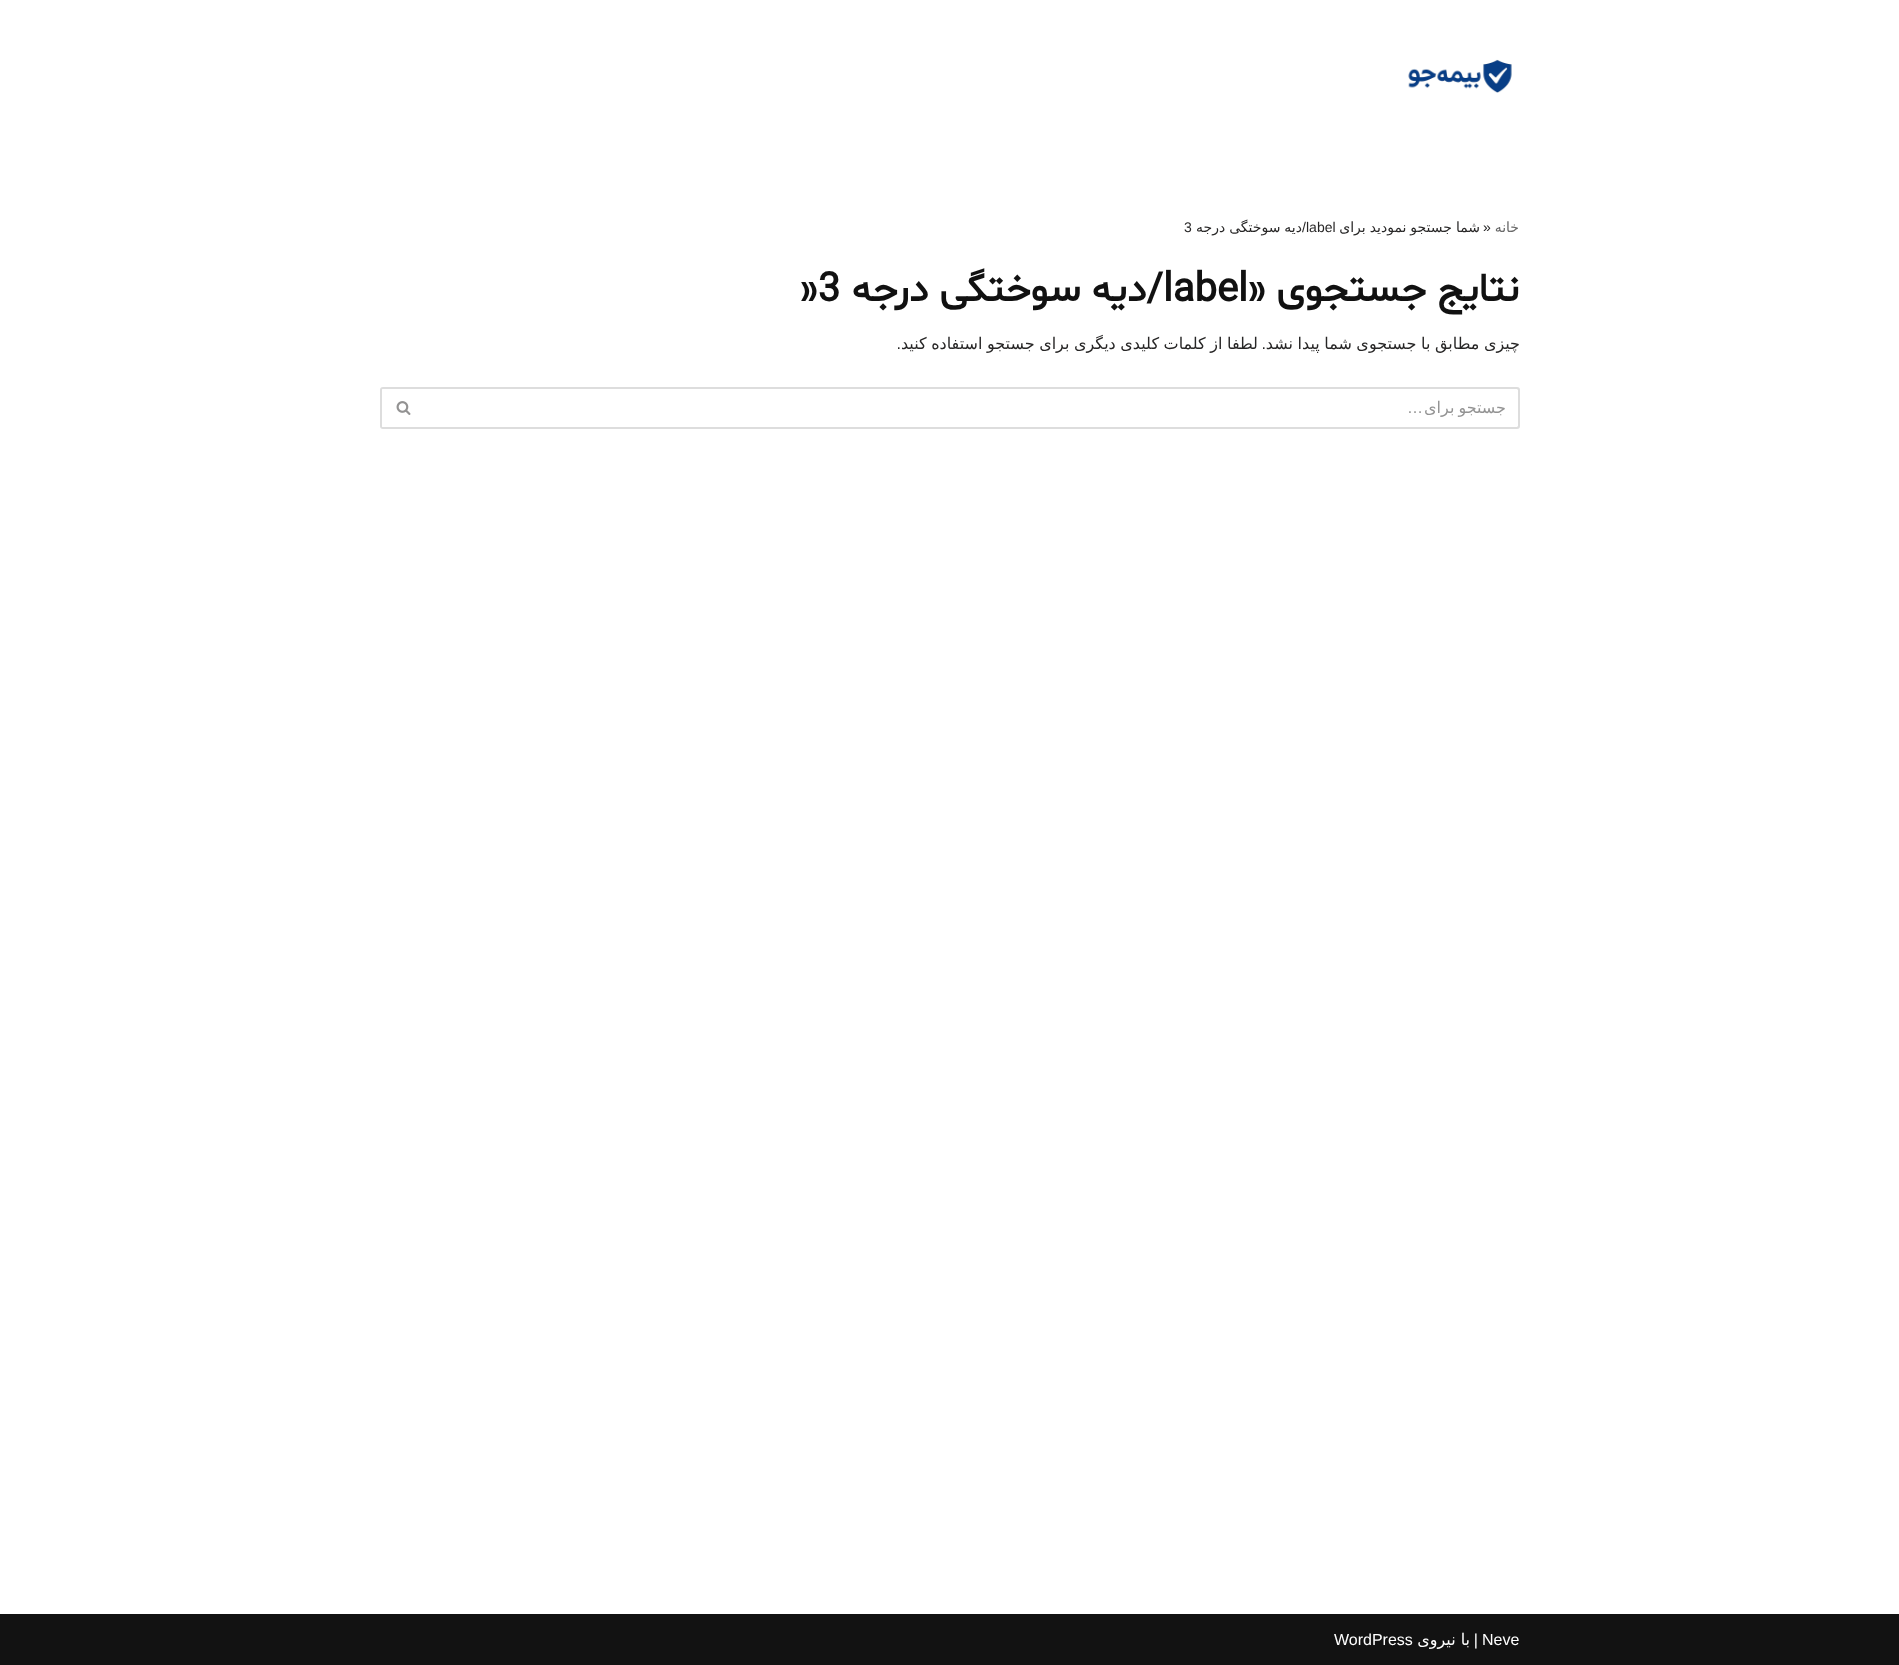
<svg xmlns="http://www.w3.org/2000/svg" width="1899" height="1665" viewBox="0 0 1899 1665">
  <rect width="100%" height="100%" fill="rgb(255,255,255)"/>
  <image x="1408" y="59" width="104" height="34" href="pic1.png"/>
  <text x="1519" y="232" font-family="DejaVu Sans" font-size="14" direction="rtl" fill="rgb(103,103,103)">خانه</text>
  <text x="1483" y="232" font-family="Liberation Sans" font-size="14" fill="rgb(39,38,38)">»</text>
  <text x="1480" y="232" word-spacing="-0.5" font-family="DejaVu Sans" font-size="14" direction="rtl" fill="rgb(39,38,38)">شما جستجو نمودید برای</text>
  <text x="1306" y="232" font-family="Liberation Sans" font-size="14" fill="rgb(39,38,38)">label</text>
  <text x="1306" y="232" font-family="Liberation Sans" font-size="14" direction="rtl" fill="rgb(39,38,38)">/</text>
  <text x="1302" y="232" word-spacing="-0.5" font-family="DejaVu Sans" font-size="14" direction="rtl" fill="rgb(39,38,38)">دیه سوختگی درجه</text>
  <text x="1184" y="232" font-family="Liberation Sans" font-size="14" fill="rgb(39,38,38)">3</text>
  <text x="1519" y="301" font-family="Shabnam" font-size="40" font-weight="bold" direction="rtl" fill="rgb(17,17,17)">نتایج جستجوی «</text>
  <text x="1163" y="301" font-family="Shabnam" font-size="40" font-weight="bold" fill="rgb(17,17,17)">label</text>
  <text x="1163" y="301" font-family="Shabnam" font-size="40" font-weight="bold" direction="rtl" fill="rgb(17,17,17)">/دیه سوختگی درجه</text>
  <text x="799" y="301" font-family="Shabnam" font-size="40" font-weight="bold" fill="rgb(17,17,17)">»3</text>
  <text x="1520" y="349" word-spacing="-0.5" font-family="DejaVu Sans" font-size="16" direction="rtl" fill="rgb(39,38,38)">چیزی مطابق با جستجوی شما پیدا نشد</text>
  <text x="1266" y="349" font-family="Liberation Sans" font-size="16" direction="rtl" fill="rgb(39,38,38)">.</text>
  <text x="1258" y="349" word-spacing="-0.5" font-family="DejaVu Sans" font-size="16" direction="rtl" fill="rgb(39,38,38)">لطفا از کلمات کلیدی دیگری برای جستجو استفاده کنید</text>
  <text x="901" y="349" font-family="Liberation Sans" font-size="16" direction="rtl" fill="rgb(39,38,38)">.</text>
  <path d="M425 387H1517C1519 387 1520 388 1520 390V426C1520 428 1519 429 1517 429H425ZM425 389H1517L1518 390V426L1517 427H425Z" fill="rgb(221,221,221)" fill-rule="evenodd"/>
  <text x="1506" y="413" word-spacing="-1" font-family="DejaVu Sans" font-size="16" direction="rtl" fill="rgb(147,147,147)">جستجو برای</text>
  <text x="1423" y="413" font-family="Liberation Sans" font-size="16" direction="rtl" fill="rgb(147,147,147)">…</text>
  <path d="M383 387H425V429H383C381 429 380 428 380 426V390C380 388 381 387 383 387ZM383 389H425V427H383C382 427 382 427 382 426V390C382 389 382 389 383 389Z" fill="rgb(221,221,221)" fill-rule="evenodd"/>
  <image x="396" y="401" width="15" height="14" href="pic2.png"/>
  <rect x="0" y="1614" width="1899" height="51" fill="rgb(18,18,18)"/>
  <text x="1482" y="1645" font-family="Liberation Sans" font-size="16" fill="rgb(255,255,255)">Neve</text>
  <text x="1478" y="1645" font-family="Liberation Sans" font-size="16" direction="rtl" fill="rgb(255,255,255)">|</text>
  <text x="1470" y="1645" font-family="DejaVu Sans" font-size="16" direction="rtl" fill="rgb(255,255,255)">با نیروی</text>
  <text x="1334" y="1645" font-family="Liberation Sans" font-size="16" fill="rgb(255,255,255)">WordPress</text>
</svg>
